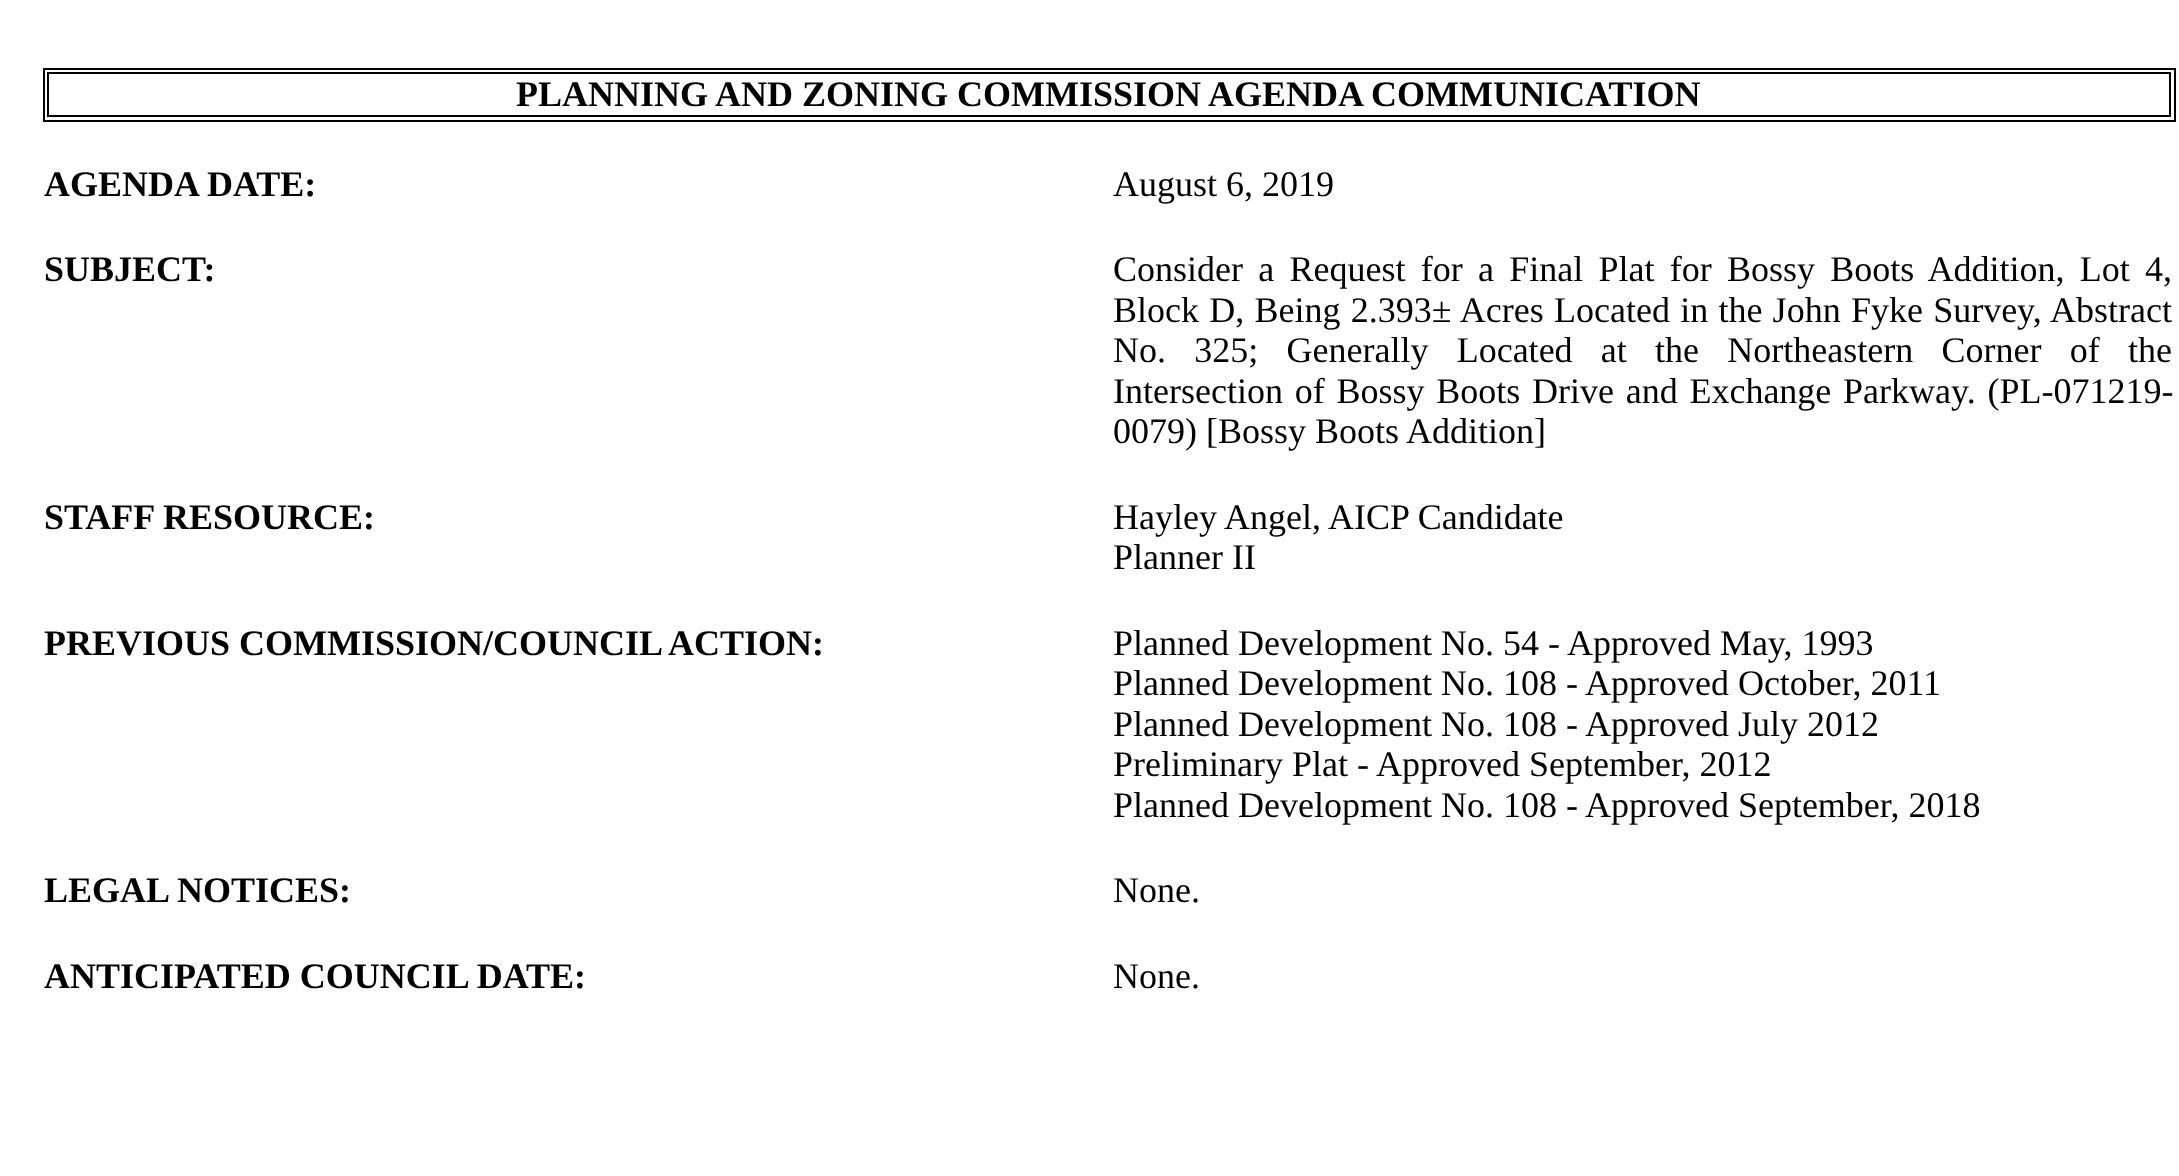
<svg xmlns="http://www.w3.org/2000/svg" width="2179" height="1176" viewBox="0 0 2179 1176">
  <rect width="100%" height="100%" fill="rgb(255,255,255)"/>
  <rect x="44" y="69" width="2131" height="52" fill="none" stroke="rgb(0,0,0)" stroke-width="2"/>
  <rect x="48" y="73" width="2122" height="43" fill="none" stroke="rgb(0,0,0)" stroke-width="2"/>
  <g font-family="Liberation Serif" font-size="36" font-weight="bold" fill="rgb(0,0,0)">
    <text x="516" y="106">PLANNING AND ZONING COMMISSION AGENDA COMMUNICATION</text>
    <text x="44" y="196">AGENDA DATE:</text>
  </g>
  <text x="1113" y="196" font-family="Liberation Serif" font-size="36" fill="rgb(0,0,0)">August 6, 2019</text>
  <text x="44" y="281" font-family="Liberation Serif" font-size="36" font-weight="bold" fill="rgb(0,0,0)">SUBJECT:</text>
  <g font-family="Liberation Serif" font-size="36" fill="rgb(0,0,0)">
    <text>
      <tspan x="1113" y="281" word-spacing="6.25">Consider a Request for a Final Plat for Bossy Boots Addition, Lot 4,</tspan>
      <tspan x="1113" y="322" word-spacing="1.25">Block D, Being 2.393± Acres Located in the John Fyke Survey, Abstract</tspan>
      <tspan x="1113" y="362" word-spacing="19.25">No. 325; Generally Located at the Northeastern Corner of the</tspan>
      <tspan x="1113" y="403" word-spacing="2.75">Intersection of Bossy Boots Drive and Exchange Parkway. (PL-071219-</tspan>
      <tspan x="1113" y="443">0079) [Bossy Boots Addition]</tspan>
    </text>
  </g>
  <text x="44" y="529" font-family="Liberation Serif" font-size="36" font-weight="bold" fill="rgb(0,0,0)">STAFF RESOURCE:</text>
  <g font-family="Liberation Serif" font-size="36" fill="rgb(0,0,0)">
    <text>
      <tspan x="1113" y="529">Hayley Angel, AICP Candidate</tspan>
      <tspan x="1113" y="569">Planner II</tspan>
    </text>
  </g>
  <text x="44" y="655" font-family="Liberation Serif" font-size="36" font-weight="bold" fill="rgb(0,0,0)">PREVIOUS COMMISSION/COUNCIL ACTION:</text>
  <g font-family="Liberation Serif" font-size="36" fill="rgb(0,0,0)">
    <text>
      <tspan x="1113" y="655">Planned Development No. 54 - Approved May, 1993</tspan>
      <tspan x="1113" y="695">Planned Development No. 108 - Approved October, 2011</tspan>
      <tspan x="1113" y="736">Planned Development No. 108 - Approved July 2012</tspan>
      <tspan x="1113" y="776">Preliminary Plat - Approved September, 2012</tspan>
      <tspan x="1113" y="817">Planned Development No. 108 - Approved September, 2018</tspan>
    </text>
  </g>
  <text x="44" y="902" font-family="Liberation Serif" font-size="36" font-weight="bold" fill="rgb(0,0,0)">LEGAL NOTICES:</text>
  <text x="1113" y="902" font-family="Liberation Serif" font-size="36" fill="rgb(0,0,0)">None.</text>
  <text x="44" y="988" font-family="Liberation Serif" font-size="36" font-weight="bold" fill="rgb(0,0,0)">ANTICIPATED COUNCIL DATE:</text>
  <text x="1113" y="988" font-family="Liberation Serif" font-size="36" fill="rgb(0,0,0)">None.</text>
</svg>
